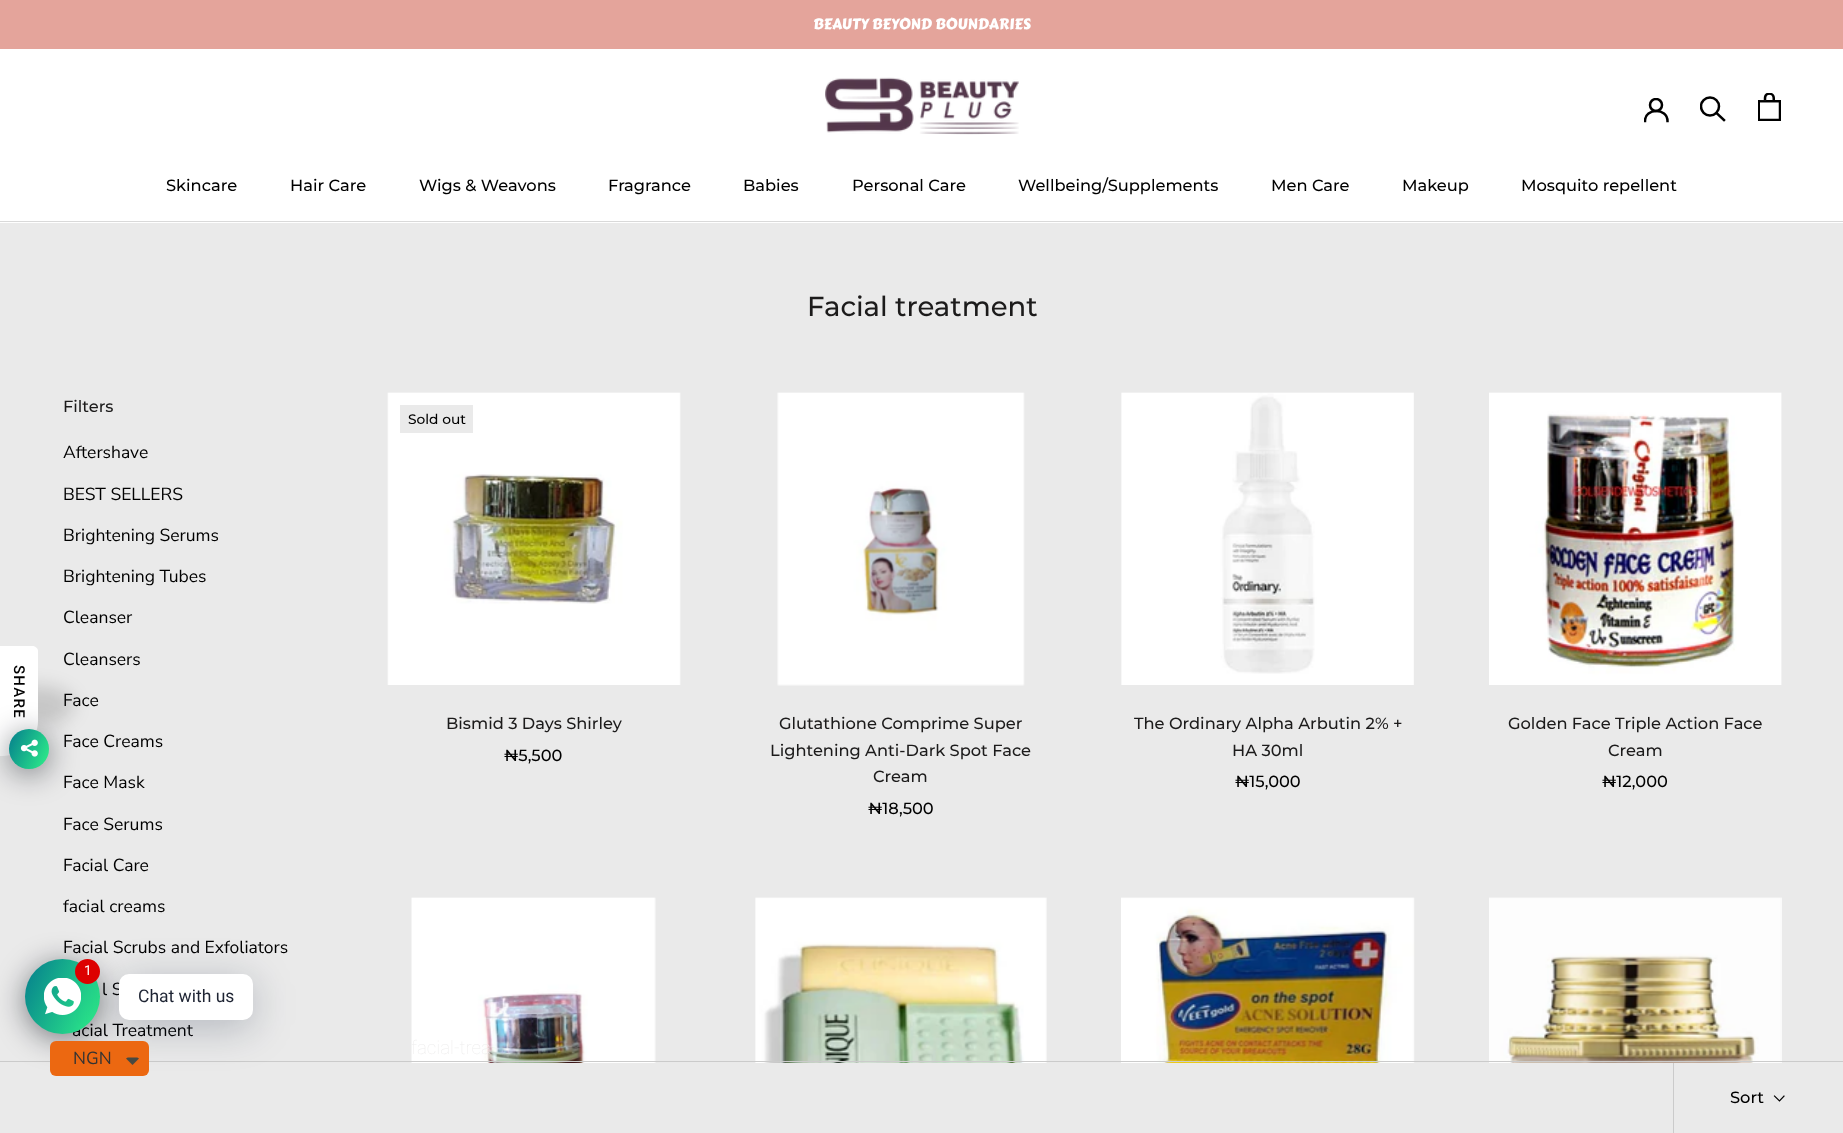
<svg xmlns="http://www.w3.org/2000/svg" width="1843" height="1133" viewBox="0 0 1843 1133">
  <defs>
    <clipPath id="clip1"><rect x="1644" y="98" width="25" height="25"/></clipPath>
    <clipPath id="clip2"><rect x="1700" y="96" width="26" height="27"/></clipPath>
    <linearGradient id="g1" gradientUnits="userSpaceOnUse" x1="4.7" y1="738" x2="53" y2="760"><stop offset="0" stop-color="rgb(4,124,141)"/><stop offset="1" stop-color="rgb(47,242,137)"/></linearGradient>
    <linearGradient id="g2" gradientUnits="userSpaceOnUse" x1="17" y1="975" x2="108" y2="1017"><stop offset="0" stop-color="rgb(4,124,141)"/><stop offset="1" stop-color="rgb(47,242,137)"/></linearGradient>
  </defs>
  <rect width="100%" height="100%" fill="rgb(234,234,234)"/>
  <rect x="0" y="0" width="1843" height="49" fill="rgb(228,164,155)"/>
  <text x="813" y="29" font-family="Carter One" font-size="15" fill="rgb(255,255,255)">BEAUTY BEYOND BOUNDARIES</text>
  <rect x="0" y="49" width="1843" height="174" fill="rgb(255,255,255)"/>
  <rect x="0" y="221" width="1843" height="1" fill="rgb(217,217,217)"/>
  <image x="825" y="77" width="194" height="58" href="pic1.png"/>
  <g clip-path="url(#clip1)">
    <path d="M1645 121C1645 107.5 1667.5 107.5 1667.5 121" fill="none" stroke="rgb(0,0,0)" stroke-width="2.5" stroke-linecap="square"/>
    <circle cx="1656" cy="105" r="6" fill="none" stroke="rgb(0,0,0)" stroke-width="2.5"/>
  </g>
  <path d="M1724 120L1716.5 113" fill="none" stroke="rgb(0,0,0)" stroke-width="2.5" stroke-linecap="square"/>
  <g clip-path="url(#clip2)">
    <circle cx="1710" cy="106.5" r="9" fill="none" stroke="rgb(0,0,0)" stroke-width="2.5"/>
  </g>
  <image x="1758" y="93" width="23" height="28" href="pic2.png"/>
  <g font-family="Montserrat" font-size="16.25" font-weight="500" fill="rgb(0,0,0)">
    <text x="166" y="191">Skincare</text>
    <text x="290" y="191">Hair Care</text>
    <text x="419" y="191">Wigs &amp; Weavons</text>
    <text x="608" y="191">Fragrance</text>
    <text x="743" y="191">Babies</text>
    <text x="852" y="191">Personal Care</text>
    <text x="1018" y="191">Wellbeing/Supplements</text>
    <text x="1271" y="191">Men Care</text>
    <text x="1402" y="191">Makeup</text>
    <text x="1521" y="191">Mosquito repellent</text>
  </g>
  <text x="807" y="316" font-family="Montserrat" font-size="27.5" font-weight="500" fill="rgb(28,27,27)">Facial treatment</text>
  <text x="63" y="412" font-family="Montserrat" font-size="16.25" font-weight="500" fill="rgb(28,27,27)">Filters</text>
  <g font-family="Nunito Sans" font-size="17.5" fill="rgb(0,0,0)">
    <text x="63" y="458">Aftershave</text>
    <text x="63" y="500">BEST SELLERS</text>
    <text x="63" y="541">Brightening Serums</text>
    <text x="63" y="582">Brightening Tubes</text>
    <text x="63" y="623">Cleanser</text>
    <text x="63" y="665">Cleansers</text>
    <text x="63" y="706">Face</text>
    <text x="63" y="747">Face Creams</text>
    <text x="63" y="788">Face Mask</text>
    <text x="63" y="830">Face Serums</text>
    <text x="63" y="871">Facial Care</text>
    <text x="63" y="912">facial creams</text>
    <text x="63" y="953">Facial Scrubs and Exfoliators</text>
    <text x="102" y="995">l S</text>
    <text x="72" y="1036">acial Treatment</text>
  </g>
  <image x="387" y="392" width="294" height="293" href="pic3.png"/>
  <rect x="400" y="405" width="73" height="28" fill="rgb(234,234,234)"/>
  <text x="408" y="424" font-family="Montserrat" font-size="13.75" font-weight="500" fill="rgb(0,0,0)">Sold out</text>
  <text x="446" y="729" font-family="Montserrat" font-size="16.25" font-weight="500" fill="rgb(28,27,27)">Bismid 3 Days Shirley</text>
  <text x="504" y="761" font-family="Montserrat" font-size="16.25" font-weight="500" fill="rgb(0,0,0)">₦5,500</text>
  <image x="777" y="392" width="248" height="294" href="pic4.png"/>
  <g font-family="Montserrat" font-size="16.25" font-weight="500" fill="rgb(28,27,27)">
    <text x="779" y="729">Glutathione Comprime Super</text>
    <text x="770" y="756">Lightening Anti-Dark Spot Face</text>
    <text x="873" y="782">Cream</text>
  </g>
  <text x="868" y="814" font-family="Montserrat" font-size="16.25" font-weight="500" fill="rgb(0,0,0)">₦18,500</text>
  <image x="1121" y="392" width="293" height="293" href="pic5.png"/>
  <g font-family="Montserrat" font-size="16.25" font-weight="500" fill="rgb(28,27,27)">
    <text x="1134" y="729">The Ordinary Alpha Arbutin 2% +</text>
    <text x="1232" y="756">HA 30ml</text>
  </g>
  <text x="1235" y="787" font-family="Montserrat" font-size="16.25" font-weight="500" fill="rgb(0,0,0)">₦15,000</text>
  <image x="1489" y="392" width="293" height="293" href="pic6.png"/>
  <g font-family="Montserrat" font-size="16.25" font-weight="500" fill="rgb(28,27,27)">
    <text x="1508" y="729">Golden Face Triple Action Face</text>
    <text x="1608" y="756">Cream</text>
  </g>
  <text x="1602" y="787" font-family="Montserrat" font-size="16.25" font-weight="500" fill="rgb(0,0,0)">₦12,000</text>
  <image x="411" y="897" width="245" height="166" href="pic7.png"/>
  <image x="755" y="897" width="292" height="166" href="pic8.png"/>
  <image x="1121" y="897" width="294" height="166" href="pic9.png"/>
  <image x="1489" y="897" width="293" height="166" href="pic10.png"/>
  <path d="M-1 1061V1133H0V1062H1843V1061Z" fill="rgb(203,203,203)"/>
  <rect x="1673" y="1063" width="1" height="70" fill="rgb(203,203,203)"/>
  <text x="1730" y="1103" font-family="Montserrat" font-size="16.25" font-weight="500" fill="rgb(0,0,0)">Sort</text>
  <path d="M1784 1096L1779.5 1101L1774.5 1096" fill="none" stroke="rgb(0,0,0)" stroke-width="1.2" stroke-linecap="square"/>
  <rect x="-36" y="686" width="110" height="38" rx="35" fill="rgba(0,0,0,0.15)" filter="blur(9px)"/>
  <path d="M0 756V646H32C35 646 38 648 38 651V721C38 740 22 756 2 756Z" fill="rgb(255,255,255)"/>
  <text x="14" y="665" transform="rotate(90 14 665)" font-family="Roboto" font-size="15" font-weight="500" letter-spacing="1.25" fill="rgb(0,0,0)">SHARE</text>
  <rect x="9" y="734" width="40" height="40" rx="20" fill="rgba(2,6,16,0.5)" filter="blur(15px)"/>
  <circle cx="29" cy="749" r="20" fill="url(#g1)"/>
  <image x="20" y="739" width="18" height="18" href="pic11.png"/>
  <rect x="25" y="964" width="75" height="75" rx="37.5" fill="rgba(2,6,16,0.5)" filter="blur(15px)"/>
  <circle cx="62.5" cy="996.5" r="37.5" fill="url(#g2)"/>
  <rect x="119" y="981" width="134" height="47" rx="10" fill="rgba(0,18,46,0.24)" filter="blur(20px)"/>
  <image x="44" y="978" width="37" height="37" href="pic12.png"/>
  <circle cx="87.5" cy="971.5" r="12.5" fill="rgb(221,0,0)"/>
  <text x="84" y="975" font-family="Roboto" font-size="13.75" fill="rgb(255,255,255)">1</text>
  <rect x="119" y="974" width="134" height="46" rx="10" fill="rgb(255,255,255)"/>
  <text x="138" y="1002" font-family="Roboto" font-size="17.5" fill="rgb(30,36,51)">Chat with us</text>
  <text x="411" y="1054" font-family="Roboto" font-size="18.75" font-weight="100" fill="rgb(238,237,237)">facial-trea</text>
  <rect x="50" y="1041" width="99" height="35" rx="6" fill="rgb(236,104,17)"/>
  <text x="73" y="1064" font-family="Nunito Sans" font-size="17.5" fill="rgb(51,51,51)">NGN</text>
  <path d="M129 1057.5C127.5 1057.5 126.5 1058 126 1058.5L132.5 1065L139 1058.5C138.5 1058 137.5 1057.5 136 1057.5Z" fill="rgb(71,73,66)"/>
</svg>
